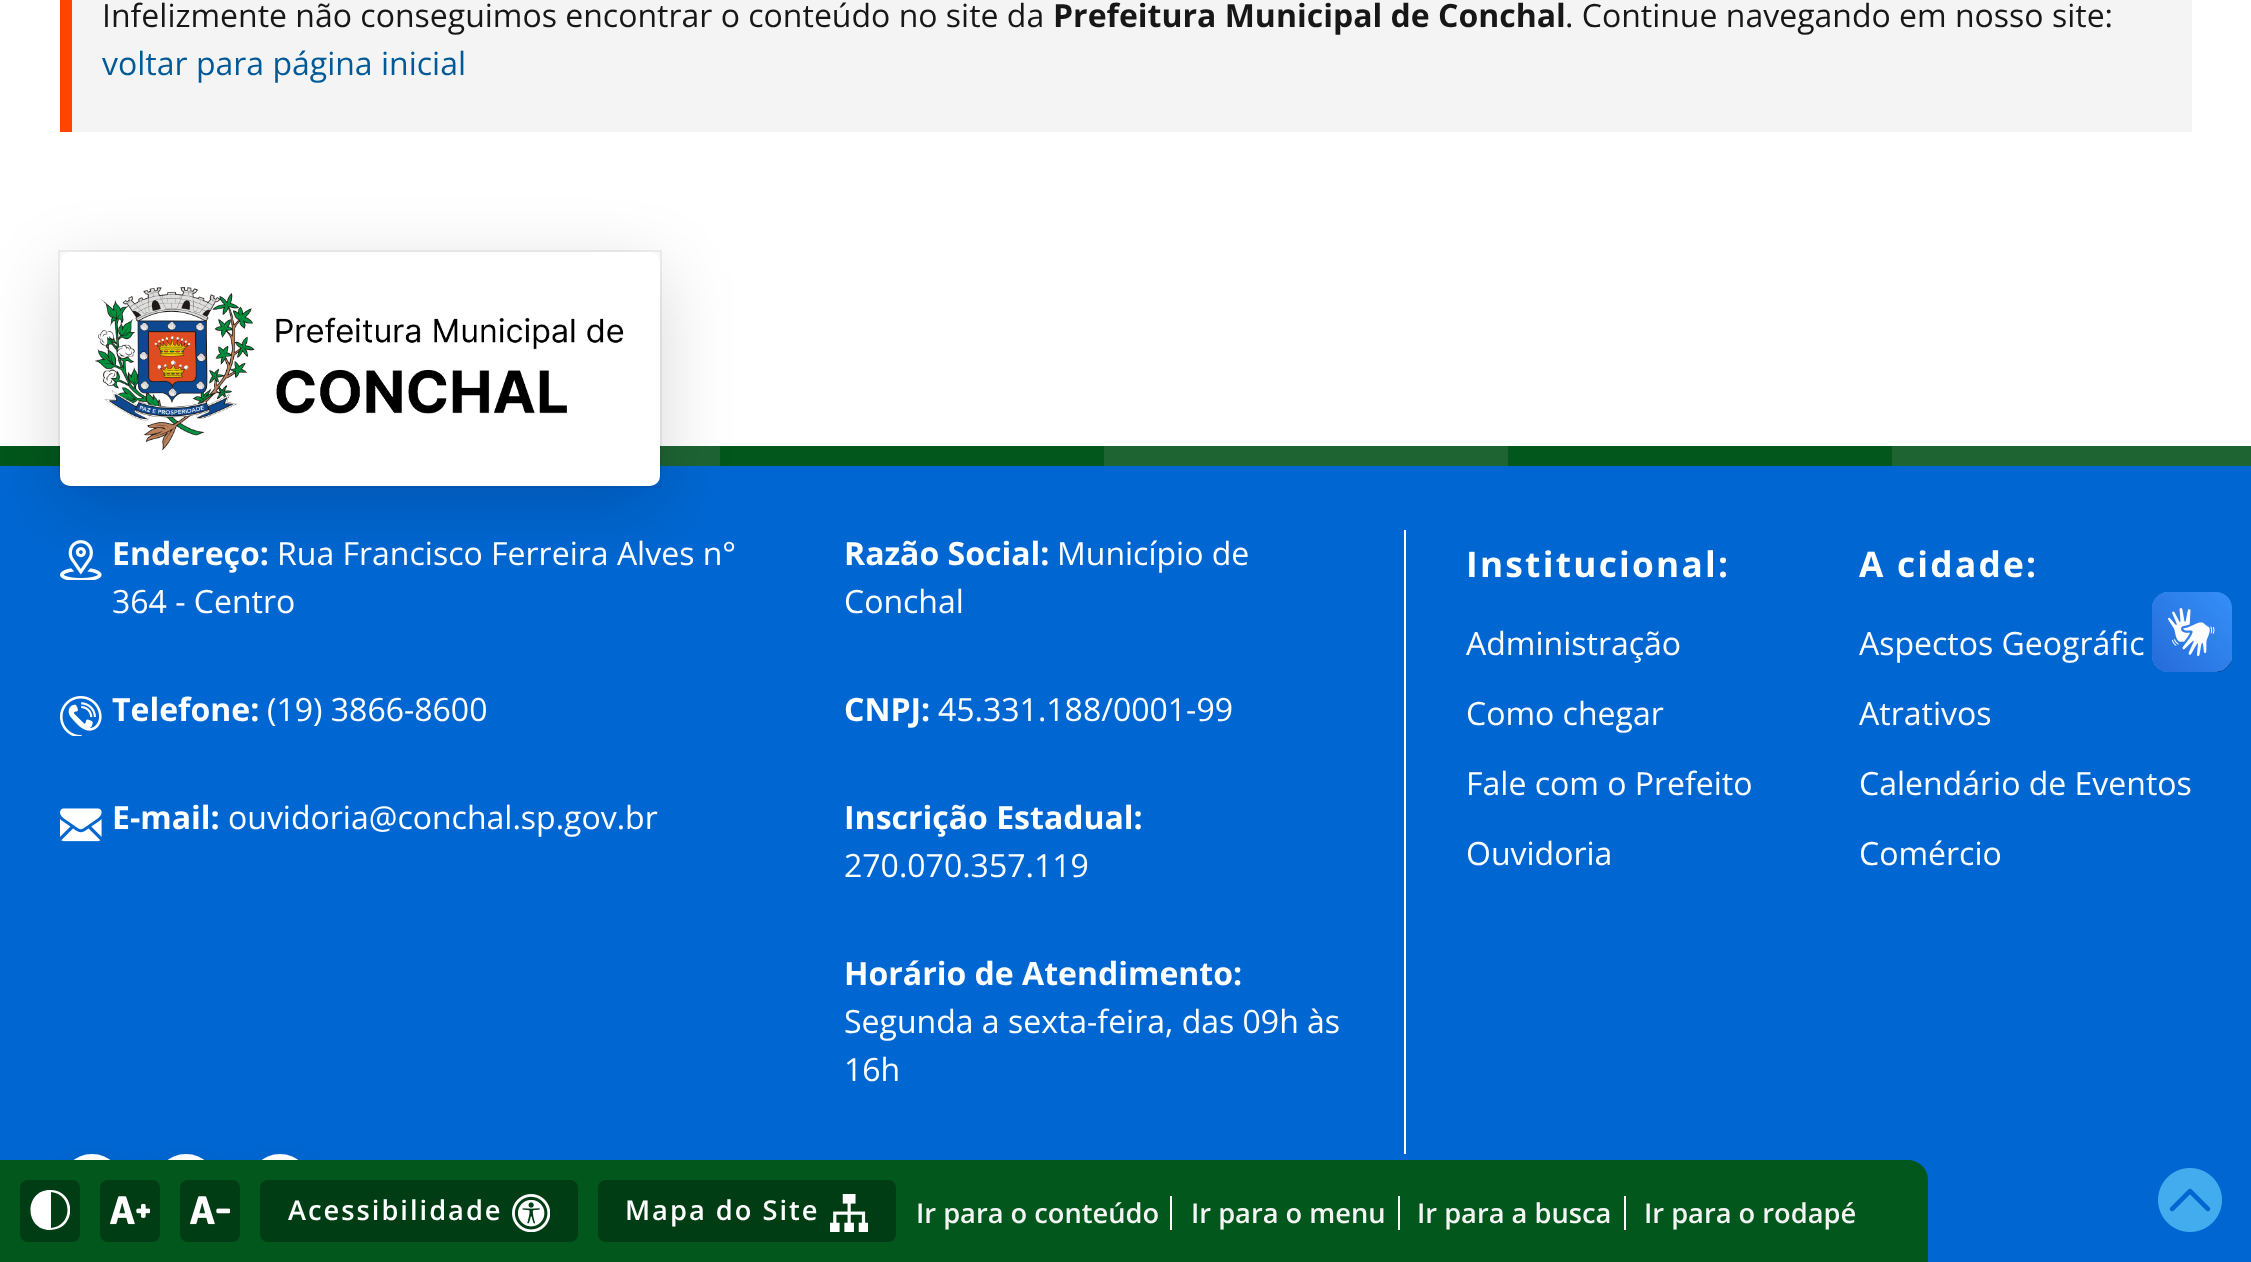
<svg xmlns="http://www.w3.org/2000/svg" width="2251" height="1262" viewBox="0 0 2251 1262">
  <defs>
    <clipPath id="clip1"><rect x="30" y="1190" width="40" height="42"/></clipPath>
  </defs>
  <rect width="100%" height="100%" fill="rgb(255,255,255)"/>
  <rect x="72" y="0" width="2120" height="132" fill="rgb(244,244,244)"/>
  <rect x="60" y="0" width="12" height="132" fill="rgb(255,69,0)"/>
  <text x="102" y="27" font-family="Open Sans" font-size="32" fill="rgb(23,23,23)">Infelizmente não conseguimos encontrar o conteúdo no site da</text>
  <text x="1053" y="27" font-family="Open Sans" font-size="32" font-weight="bold" fill="rgb(23,23,23)">Prefeitura Municipal de Conchal</text>
  <text x="1565" y="27" font-family="Open Sans" font-size="32" fill="rgb(23,23,23)">. Continue navegando em nosso site:</text>
  <text x="102" y="75" font-family="Open Sans" font-size="32" fill="rgb(0,90,151)">voltar para página inicial</text>
  <rect x="0" y="466" width="2251" height="796" fill="rgb(0,103,210)"/>
  <rect x="0" y="446" width="60" height="20" fill="rgb(2,87,28)"/>
  <rect x="660" y="446" width="60" height="20" fill="rgb(30,100,51)"/>
  <rect x="59" y="251" width="602" height="236" fill="none" stroke="rgba(0,0,0,0.06)" stroke-width="2"/>
  <rect x="720" y="446" width="384" height="20" fill="rgb(2,87,28)"/>
  <image x="60" y="540" width="42" height="40" href="pic2.png"/>
  <rect x="60" y="272" width="600" height="234" rx="10" fill="rgba(0,0,0,0.16)" filter="blur(36px)"/>
  <rect x="60" y="252" width="600" height="234" rx="10" fill="rgb(255,255,255)"/>
  <image x="95" y="287" width="529" height="164" href="pic1.png"/>
  <rect x="1104" y="446" width="404" height="20" fill="rgb(30,100,51)"/>
  <rect x="1508" y="446" width="384" height="20" fill="rgb(2,87,28)"/>
  <rect x="1892" y="446" width="359" height="20" fill="rgb(30,100,51)"/>
  <text x="112" y="565" font-family="Open Sans" font-size="32" font-weight="bold" fill="rgb(255,255,255)">Endereço:</text>
  <g font-family="Open Sans" font-size="32" fill="rgb(255,255,255)">
    <text x="277" y="565">Rua Francisco Ferreira Alves n°</text>
    <text x="112" y="613">364 - Centro</text>
  </g>
  <image x="60" y="696" width="42" height="40" href="pic3.png"/>
  <text x="112" y="721" font-family="Open Sans" font-size="32" font-weight="bold" fill="rgb(255,255,255)">Telefone:</text>
  <text x="267" y="721" font-family="Open Sans" font-size="32" fill="rgb(255,255,255)">(19) 3866-8600</text>
  <image x="60" y="808" width="42" height="34" href="pic4.png"/>
  <text x="112" y="829" font-family="Open Sans" font-size="32" font-weight="bold" fill="rgb(255,255,255)">E-mail:</text>
  <text x="228" y="829" font-family="Open Sans" font-size="32" fill="rgb(255,255,255)">ouvidoria@conchal.sp.gov.br</text>
  <text x="844" y="565" font-family="Open Sans" font-size="32" font-weight="bold" fill="rgb(255,255,255)">Razão Social:</text>
  <g font-family="Open Sans" font-size="32" fill="rgb(255,255,255)">
    <text x="1057" y="565">Município de</text>
    <text x="844" y="613">Conchal</text>
  </g>
  <text x="844" y="721" font-family="Open Sans" font-size="32" font-weight="bold" fill="rgb(255,255,255)">CNPJ:</text>
  <text x="938" y="721" font-family="Open Sans" font-size="32" fill="rgb(255,255,255)">45.331.188/0001-99</text>
  <text x="844" y="829" font-family="Open Sans" font-size="32" font-weight="bold" fill="rgb(255,255,255)">Inscrição Estadual:</text>
  <text x="844" y="877" font-family="Open Sans" font-size="32" fill="rgb(255,255,255)">270.070.357.119</text>
  <text x="844" y="985" font-family="Open Sans" font-size="32" font-weight="bold" fill="rgb(255,255,255)">Horário de Atendimento:</text>
  <g font-family="Open Sans" font-size="32" fill="rgb(255,255,255)">
    <text>
      <tspan x="844" y="1033">Segunda a sexta-feira, das 09h às</tspan>
      <tspan x="844" y="1081">16h</tspan>
    </text>
  </g>
  <rect x="1404" y="530" width="2" height="624" fill="rgb(255,255,255)"/>
  <text x="1466" y="577" font-family="Open Sans" font-size="35.25" font-weight="bold" letter-spacing="2.25" fill="rgb(255,255,255)">Institucional:</text>
  <g font-family="Open Sans" font-size="32" fill="rgb(255,255,255)">
    <text x="1466" y="655">Administração</text>
    <text x="1466" y="725">Como chegar</text>
    <text x="1466" y="795">Fale com o Prefeito</text>
    <text x="1466" y="865">Ouvidoria</text>
  </g>
  <text x="1859" y="577" font-family="Open Sans" font-size="35.25" font-weight="bold" letter-spacing="2.25" fill="rgb(255,255,255)">A cidade:</text>
  <g font-family="Open Sans" font-size="32" fill="rgb(255,255,255)">
    <text x="1859" y="655">Aspectos Geográfic</text>
    <text x="1859" y="725">Atrativos</text>
    <text x="1859" y="795">Calendário de Eventos</text>
    <text x="1859" y="865">Comércio</text>
  </g>
  <rect x="60" y="1174" width="64" height="64" rx="32" fill="rgba(0,0,0,0.19)" filter="blur(20px)"/>
  <circle cx="92" cy="1186" r="32" fill="rgb(255,255,255)"/>
  <rect x="154" y="1174" width="64" height="64" rx="32" fill="rgba(0,0,0,0.19)" filter="blur(20px)"/>
  <circle cx="186" cy="1186" r="32" fill="rgb(255,255,255)"/>
  <rect x="248" y="1174" width="64" height="64" rx="32" fill="rgba(0,0,0,0.19)" filter="blur(20px)"/>
  <circle cx="280" cy="1186" r="32" fill="rgb(255,255,255)"/>
  <image x="2158" y="1168" width="64" height="64" href="pic5.png"/>
  <image x="2152" y="592" width="80" height="80" href="pic6.png"/>
  <image x="2152" y="592" width="80" height="80" href="pic7.png"/>
  <path d="M0 1160H1908C1919 1160 1928 1169 1928 1180V1262H0Z" fill="rgb(2,87,28)"/>
  <rect x="20" y="1180" width="60" height="62" rx="8" fill="rgb(1,61,20)"/>
  <g clip-path="url(#clip1)">
    <path d="M50 1190C24 1190 24 1230 50 1230C77 1230 77 1190 50 1190ZM51 1228V1192C73 1194 73 1226 51 1228Z" fill="rgb(255,255,255)"/>
  </g>
  <rect x="100" y="1180" width="60" height="62" rx="8" fill="rgb(1,61,20)"/>
  <image x="110" y="1196" width="40" height="29" href="pic8.png"/>
  <rect x="180" y="1180" width="60" height="62" rx="8" fill="rgb(1,61,20)"/>
  <image x="190" y="1196" width="40" height="29" href="pic9.png"/>
  <rect x="260" y="1180" width="318" height="62" rx="8" fill="rgb(1,61,20)"/>
  <text x="288" y="1220" font-family="Open Sans" font-size="27.25" font-weight="600" letter-spacing="2" fill="rgb(255,255,255)">Acessibilidade</text>
  <image x="512" y="1194" width="38" height="38" href="pic10.png"/>
  <rect x="598" y="1180" width="298" height="62" rx="8" fill="rgb(1,61,20)"/>
  <text x="625" y="1220" font-family="Open Sans" font-size="27.25" font-weight="600" letter-spacing="2" fill="rgb(255,255,255)">Mapa do Site</text>
  <image x="830" y="1194" width="38" height="38" href="pic11.png"/>
  <rect x="1170" y="1196" width="2" height="34" fill="rgb(255,255,255)"/>
  <text x="916" y="1223" font-family="Open Sans" font-size="27.25" font-weight="600" fill="rgb(244,244,244)">Ir para o conteúdo</text>
  <rect x="1398" y="1196" width="2" height="34" fill="rgb(255,255,255)"/>
  <text x="1191" y="1223" font-family="Open Sans" font-size="27.25" font-weight="600" fill="rgb(244,244,244)">Ir para o menu</text>
  <rect x="1624" y="1196" width="2" height="34" fill="rgb(255,255,255)"/>
  <g font-family="Open Sans" font-size="27.25" font-weight="600" fill="rgb(244,244,244)">
    <text x="1417" y="1223">Ir para a busca</text>
    <text x="1644" y="1223">Ir para o rodapé</text>
  </g>
</svg>
